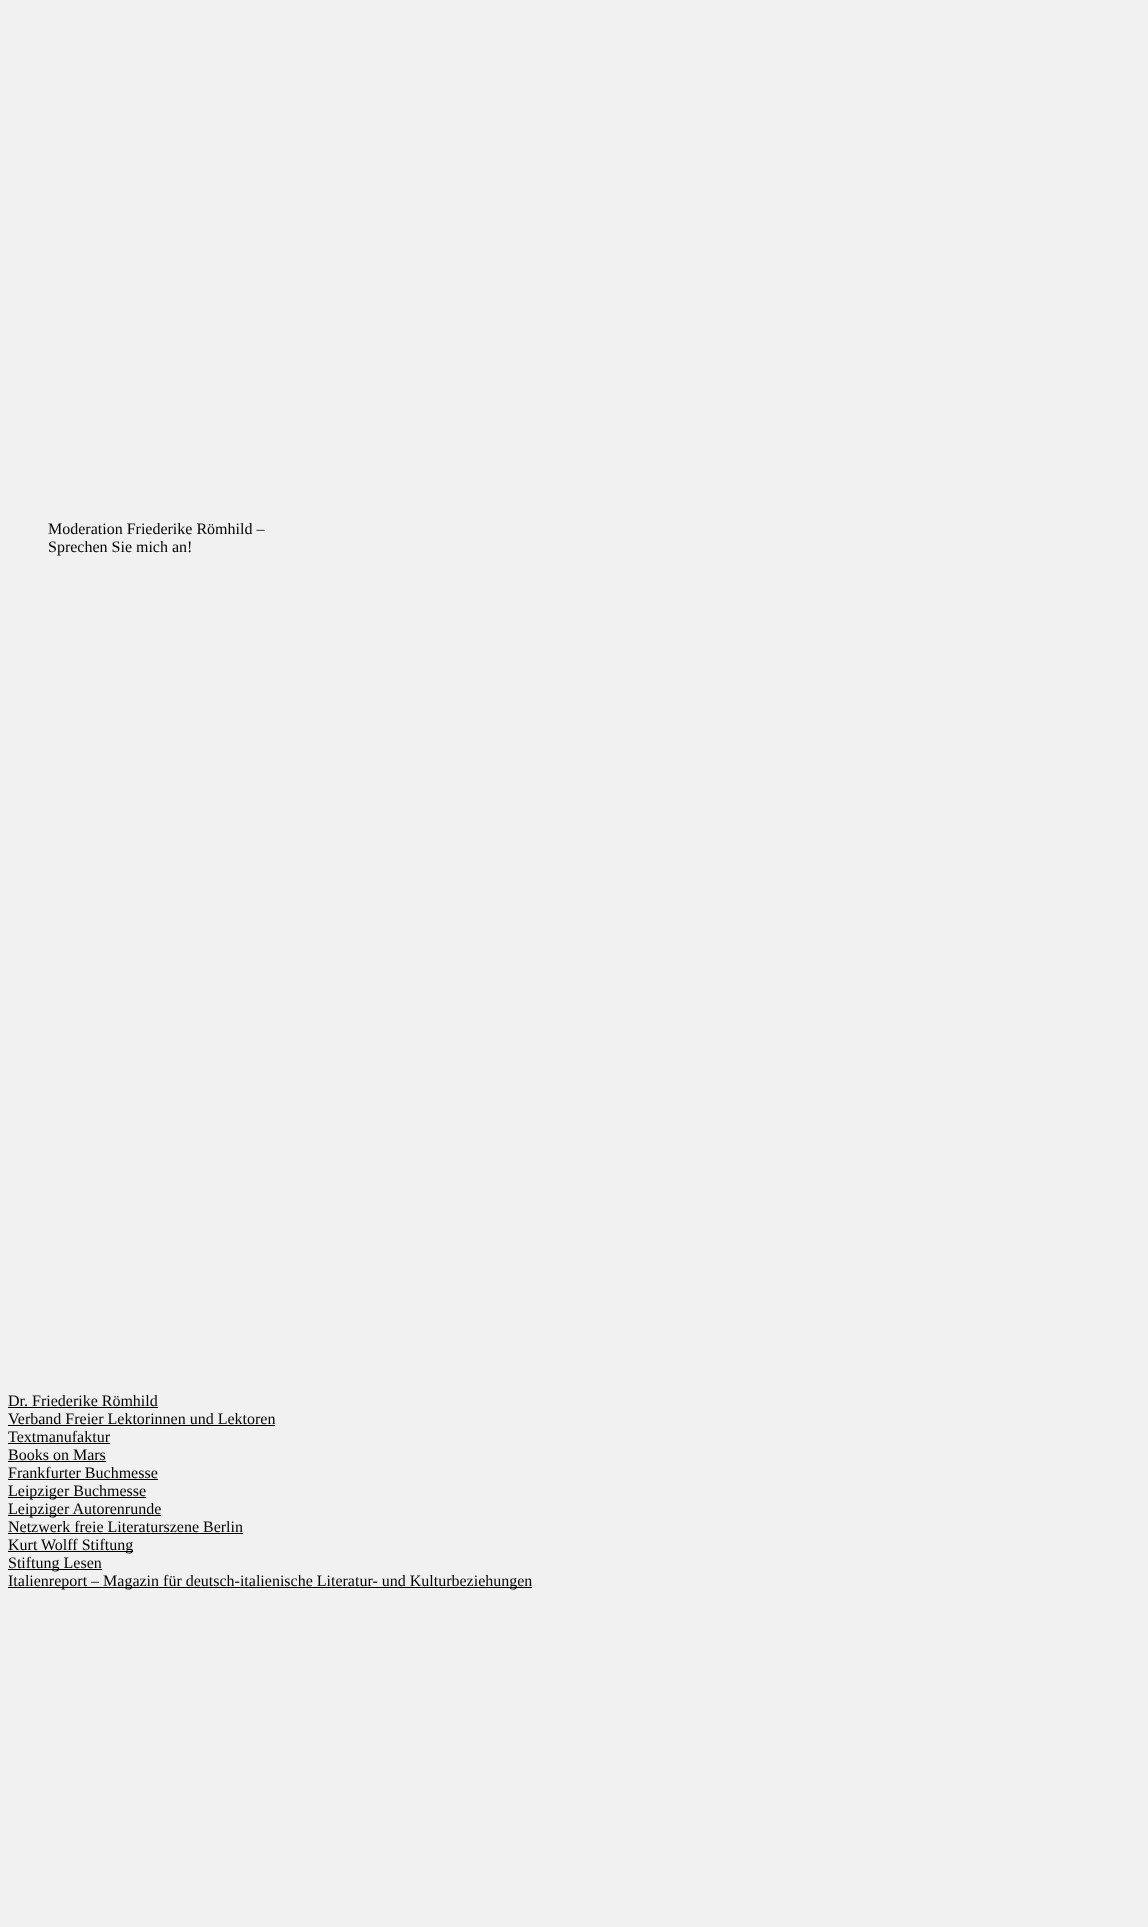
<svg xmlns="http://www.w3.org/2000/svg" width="1148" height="1927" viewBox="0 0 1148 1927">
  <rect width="100%" height="100%" fill="rgb(241,241,241)"/>
  <g font-family="Liberation Serif" font-size="16" fill="rgb(0,0,0)">
    <text>
      <tspan x="48" y="534">Moderation Friederike Römhild –</tspan>
      <tspan x="48" y="552">Sprechen Sie mich an!</tspan>
    </text>
    <text x="8" y="1406">Dr. Friederike Römhild</text>
  </g>
  <rect x="8" y="1407" width="150" height="1" fill="rgb(0,0,0)"/>
  <text x="8" y="1424" font-family="Liberation Serif" font-size="16" fill="rgb(0,0,0)">Verband Freier Lektorinnen und Lektoren</text>
  <rect x="8" y="1425" width="267" height="1" fill="rgb(0,0,0)"/>
  <text x="8" y="1442" font-family="Liberation Serif" font-size="16" fill="rgb(0,0,0)">Textmanufaktur</text>
  <rect x="8" y="1443" width="102" height="1" fill="rgb(0,0,0)"/>
  <text x="8" y="1460" font-family="Liberation Serif" font-size="16" fill="rgb(0,0,0)">Books on Mars</text>
  <rect x="8" y="1461" width="98" height="1" fill="rgb(0,0,0)"/>
  <text x="8" y="1478" font-family="Liberation Serif" font-size="16" fill="rgb(0,0,0)">Frankfurter Buchmesse</text>
  <rect x="8" y="1479" width="150" height="1" fill="rgb(0,0,0)"/>
  <rect x="8" y="1497" width="138" height="1" fill="rgb(0,0,0)"/>
  <text x="8" y="1496" font-family="Liberation Serif" font-size="16" fill="rgb(0,0,0)">Leipziger Buchmesse</text>
  <rect x="8" y="1515" width="153" height="1" fill="rgb(0,0,0)"/>
  <g font-family="Liberation Serif" font-size="16" fill="rgb(0,0,0)">
    <text>
      <tspan x="8" y="1514">Leipziger Autorenrunde</tspan>
      <tspan x="8" y="1532">Netzwerk freie Literaturszene Berlin</tspan>
    </text>
  </g>
  <rect x="8" y="1533" width="235" height="1" fill="rgb(0,0,0)"/>
  <rect x="8" y="1551" width="125" height="1" fill="rgb(0,0,0)"/>
  <text x="8" y="1550" font-family="Liberation Serif" font-size="16" fill="rgb(0,0,0)">Kurt Wolff Stiftung</text>
  <rect x="8" y="1569" width="94" height="1" fill="rgb(0,0,0)"/>
  <text x="8" y="1568" font-family="Liberation Serif" font-size="16" fill="rgb(0,0,0)">Stiftung Lesen</text>
  <rect x="8" y="1587" width="524" height="1" fill="rgb(0,0,0)"/>
  <text x="8" y="1586" font-family="Liberation Serif" font-size="16" fill="rgb(0,0,0)">Italienreport – Magazin für deutsch-italienische Literatur- und Kulturbeziehungen</text>
</svg>
